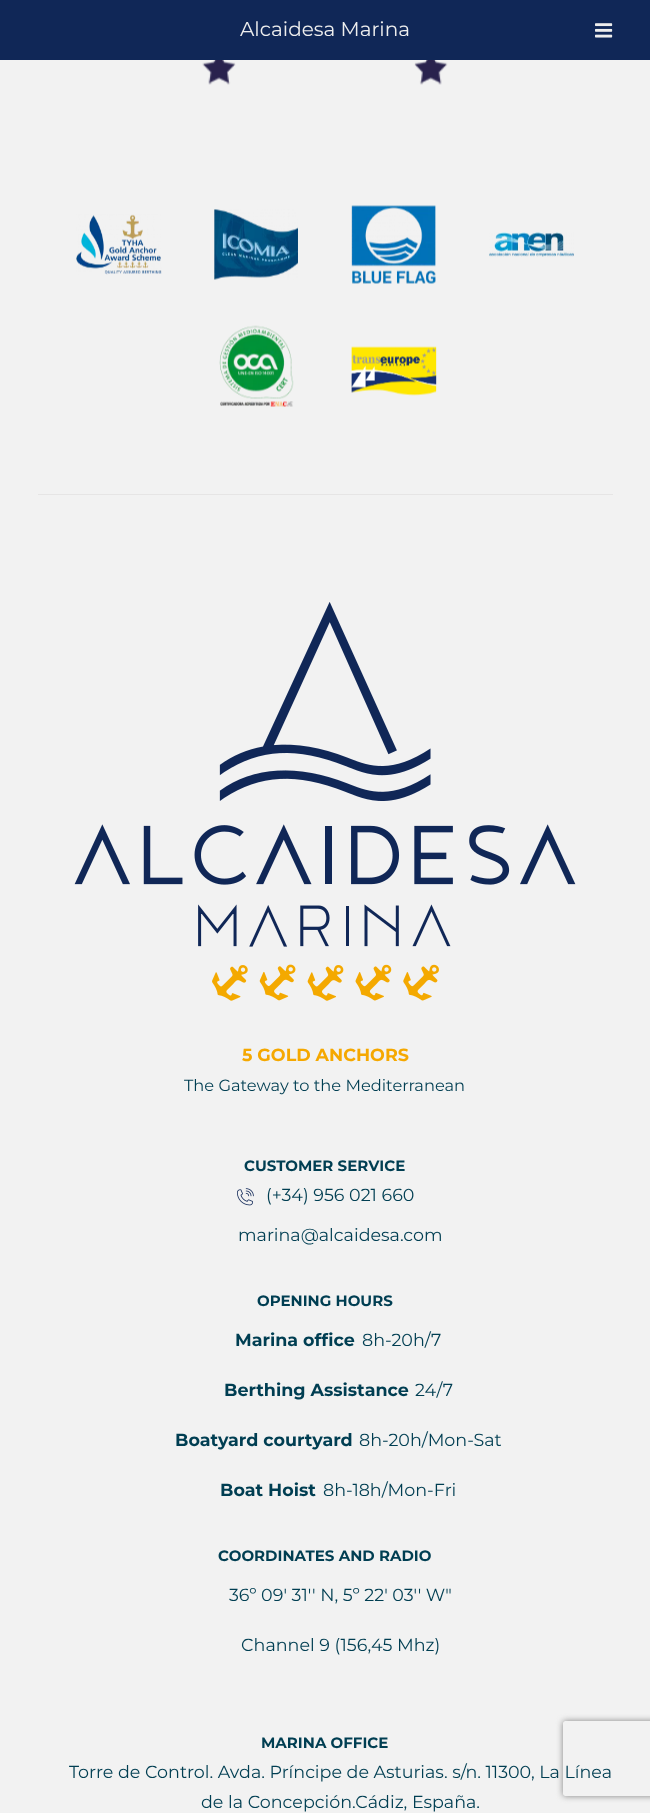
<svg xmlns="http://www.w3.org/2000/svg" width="650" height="1813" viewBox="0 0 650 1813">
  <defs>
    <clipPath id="clip1"><path d="M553 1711H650V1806H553ZM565.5 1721H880.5C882 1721 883 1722 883 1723.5V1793.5C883 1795 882 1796 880.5 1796H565.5C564 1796 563 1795 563 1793.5V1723.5C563 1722 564 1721 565.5 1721Z" clip-rule="evenodd"/></clipPath>
  </defs>
  <rect width="100%" height="100%" fill="rgb(242,242,242)"/>
  <rect x="0" y="0" width="650" height="60" fill="rgb(16,39,87)"/>
  <text x="240" y="36" font-family="Montserrat" font-size="20" fill="rgb(238,238,238)">Alcaidesa Marina</text>
  <image x="595" y="23" width="18" height="15" href="pic1.png"/>
  <image x="202" y="60" width="246" height="25" href="pic2.png"/>
  <rect x="38" y="494" width="575" height="1" fill="rgb(230,229,229)"/>
  <image x="76" y="214" width="86" height="61" href="pic3.png"/>
  <image x="214" y="209" width="84" height="71" href="pic4.png"/>
  <image x="351" y="205" width="85" height="79" href="pic5.png"/>
  <image x="489" y="232" width="85" height="25" href="pic6.png"/>
  <image x="219" y="325" width="75" height="82" href="pic7.png"/>
  <image x="351" y="346" width="86" height="50" href="pic8.png"/>
  <image x="74" y="602" width="502" height="399" href="pic9.png"/>
  <text x="242" y="1061" font-family="Montserrat" font-size="17.5" font-weight="bold" fill="rgb(245,168,0)">5 GOLD ANCHORS</text>
  <text x="184" y="1091" font-family="Montserrat" font-size="16.25" fill="rgb(0,62,82)">The Gateway to the Mediterranean</text>
  <text x="244" y="1171" font-family="Montserrat" font-size="15" font-weight="bold" fill="rgb(0,62,82)">CUSTOMER SERVICE</text>
  <image x="237" y="1188" width="17" height="18" href="pic10.png"/>
  <g font-family="Montserrat" font-size="17.5" fill="rgb(0,62,82)">
    <text x="266" y="1201">(+34) 956 021 660</text>
    <text x="238" y="1241">marina@alcaidesa.com</text>
  </g>
  <text x="257" y="1306" font-family="Montserrat" font-size="15" font-weight="bold" fill="rgb(0,62,82)">OPENING HOURS</text>
  <text x="235" y="1346" font-family="Montserrat" font-size="17.5" font-weight="bold" fill="rgb(0,62,82)">Marina office</text>
  <text x="362" y="1346" font-family="Montserrat" font-size="17.5" fill="rgb(0,62,82)">8h-20h/7</text>
  <text x="224" y="1396" font-family="Montserrat" font-size="17.5" font-weight="bold" fill="rgb(0,62,82)">Berthing Assistance</text>
  <text x="415" y="1396" font-family="Montserrat" font-size="17.5" fill="rgb(0,62,82)">24/7</text>
  <text x="175" y="1446" font-family="Montserrat" font-size="17.5" font-weight="bold" fill="rgb(0,62,82)">Boatyard courtyard</text>
  <text x="359" y="1446" font-family="Montserrat" font-size="17.5" fill="rgb(0,62,82)">8h-20h/Mon-Sat</text>
  <text x="220" y="1496" font-family="Montserrat" font-size="17.5" font-weight="bold" fill="rgb(0,62,82)">Boat Hoist</text>
  <text x="323" y="1496" font-family="Montserrat" font-size="17.5" fill="rgb(0,62,82)">8h-18h/Mon-Fri</text>
  <text x="218" y="1561" font-family="Montserrat" font-size="15" font-weight="bold" fill="rgb(0,62,82)">COORDINATES AND RADIO</text>
  <g font-family="Montserrat" font-size="17.5" fill="rgb(0,62,82)">
    <text x="229" y="1601">36º 09' 31'' N, 5º 22' 03'' W"</text>
    <text x="241" y="1651">Channel 9 (156,45 Mhz)</text>
  </g>
  <text x="261" y="1748" font-family="Montserrat" font-size="15" font-weight="bold" fill="rgb(0,62,82)">MARINA OFFICE</text>
  <g font-family="Montserrat" font-size="17.5" fill="rgb(0,62,82)">
    <text x="69" y="1778">Torre de Control. Avda. Príncipe de Asturias. s/n. 11300, La Línea</text>
    <text x="201" y="1808">de la Concepción.Cádiz, España.</text>
  </g>
  <g clip-path="url(#clip1)">
    <rect x="563" y="1721" width="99" height="75" rx="2.5" fill="rgb(128,128,128)" filter="blur(3px)"/>
  </g>
</svg>
